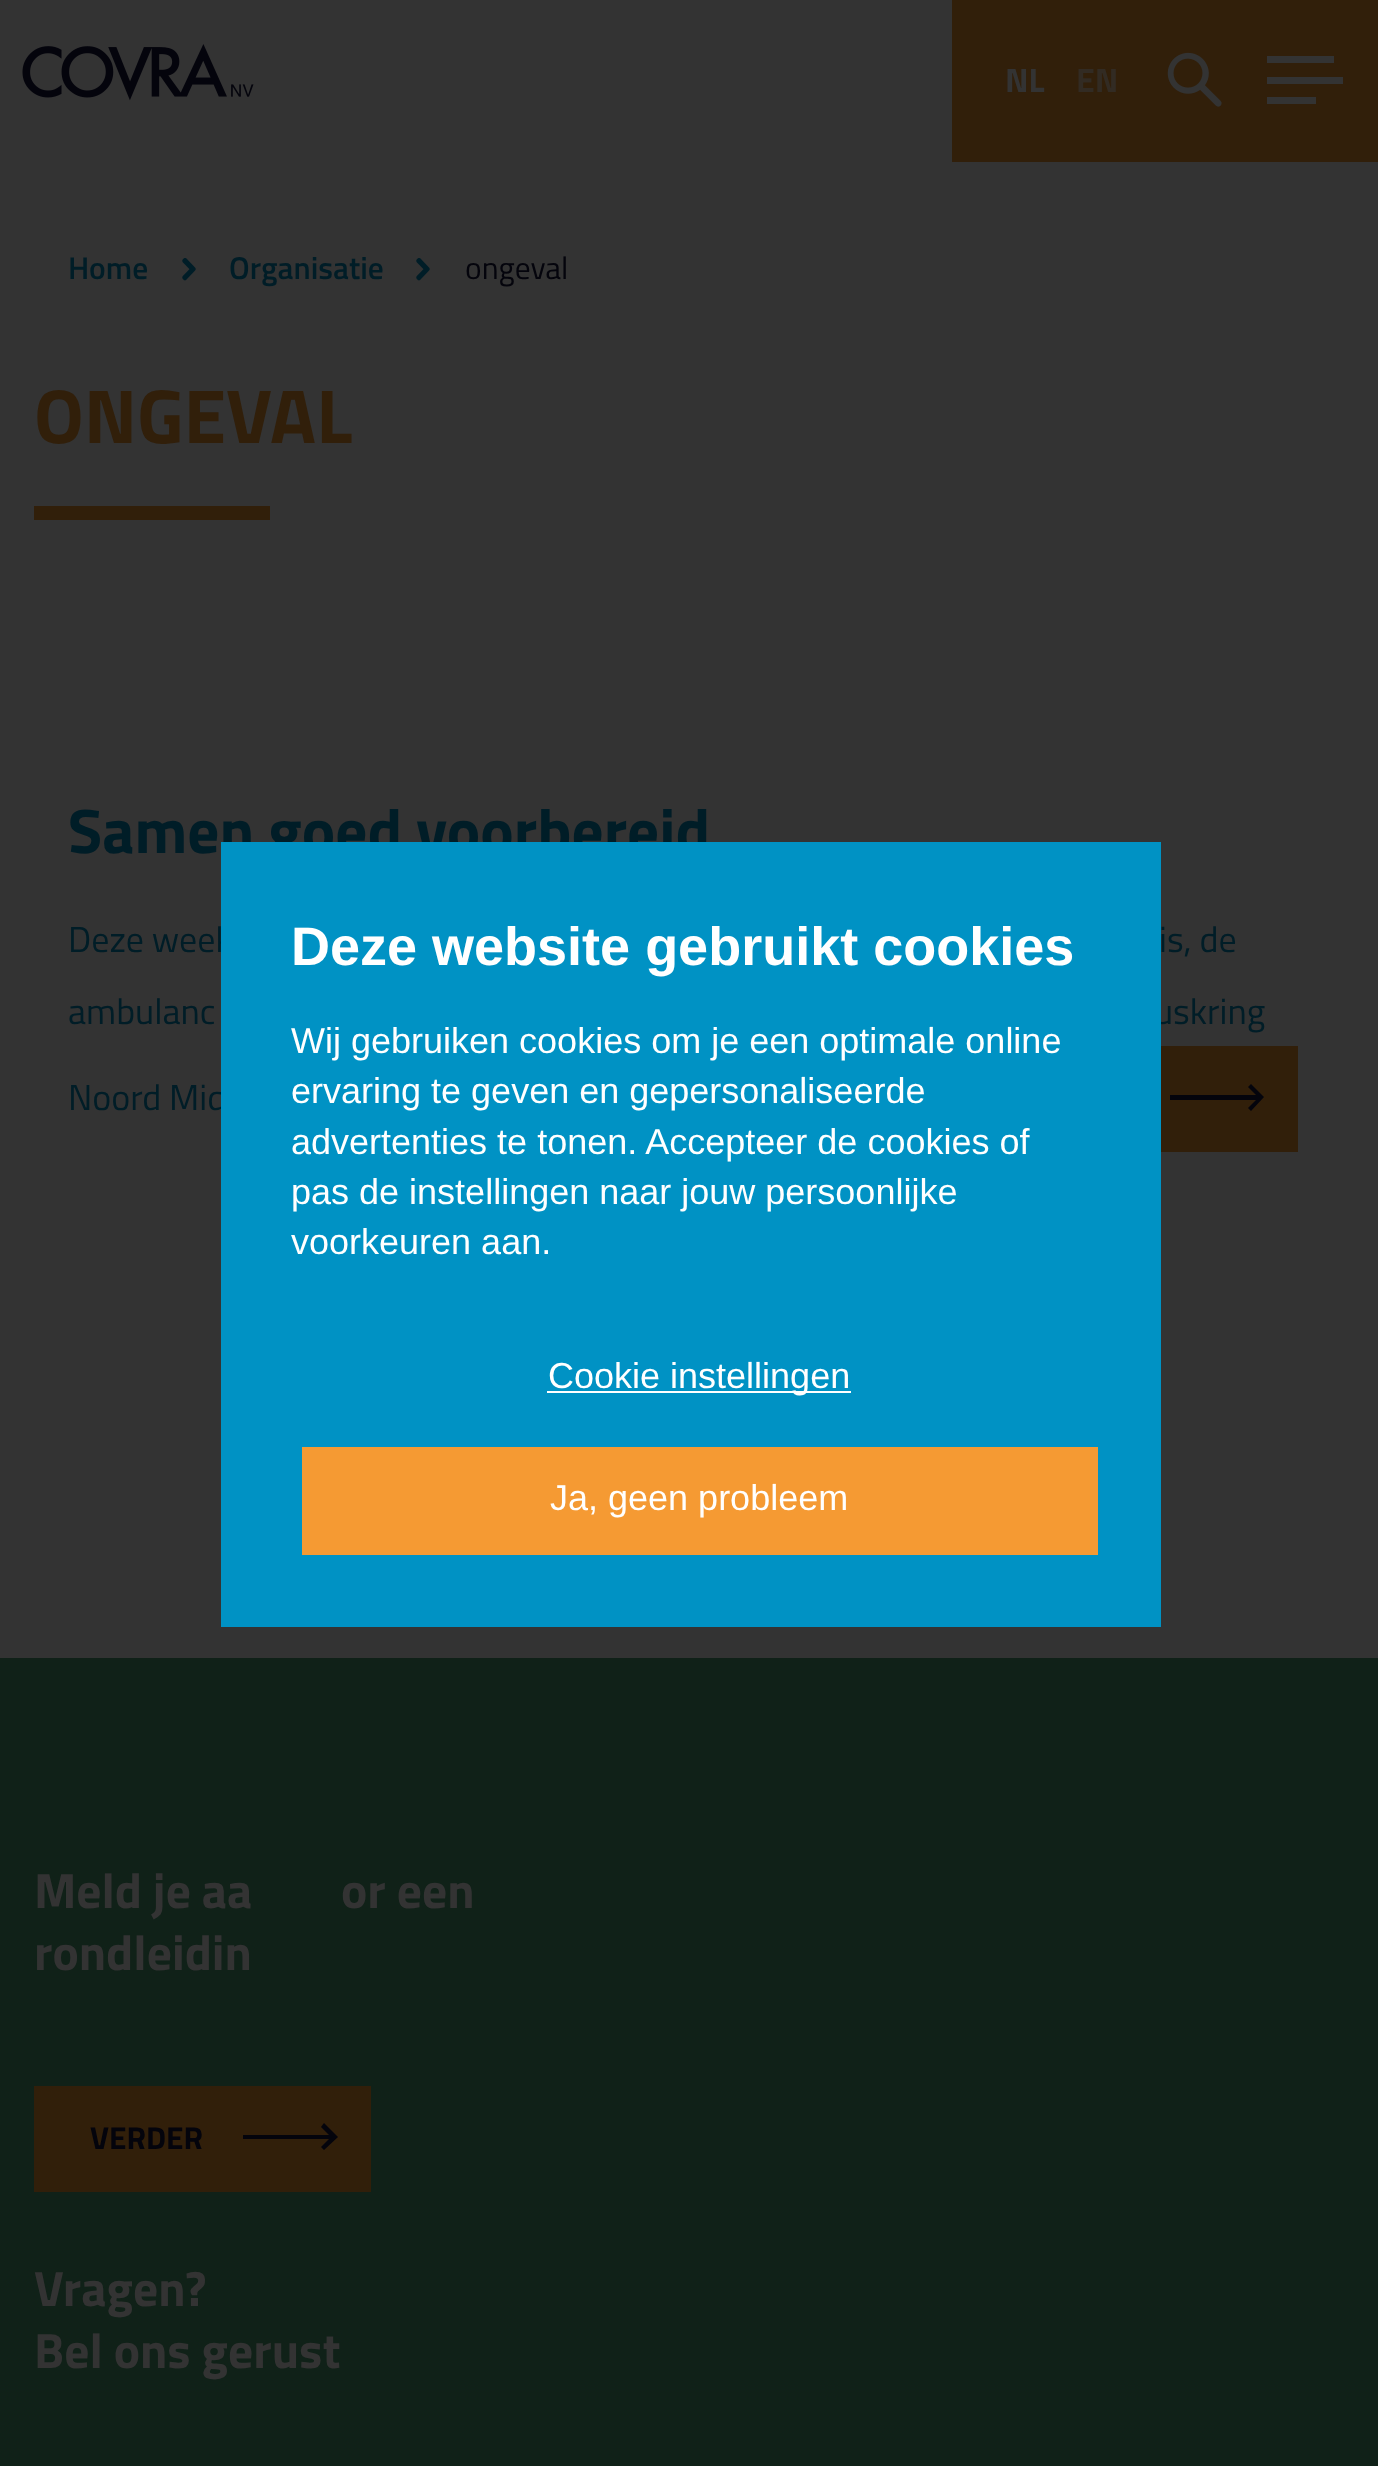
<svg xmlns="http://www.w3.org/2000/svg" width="1378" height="2466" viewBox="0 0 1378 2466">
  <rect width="100%" height="100%" fill="rgb(51,51,51)"/>
  <image x="22" y="44" width="232" height="57" href="pic1.png"/>
  <rect x="952" y="0" width="426" height="162" fill="rgb(49,31,10)"/>
  <text x="1005" y="92" font-family="Titillium Web" font-size="34" font-weight="bold" fill="rgb(51,51,51)">NL</text>
  <text x="1076" y="92" font-family="Titillium Web" font-size="34" font-weight="bold" fill="rgb(50,43,35)">EN</text>
  <image x="1167" y="52" width="55" height="55" href="pic2.png"/>
  <rect x="1267" y="56" width="67" height="7" fill="rgb(51,51,51)"/>
  <rect x="1267" y="77" width="76" height="7" fill="rgb(51,51,51)"/>
  <rect x="1267" y="97" width="49" height="7" fill="rgb(51,51,51)"/>
  <text x="68" y="279" font-family="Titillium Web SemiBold" font-size="31.5" font-weight="600" fill="rgb(0,29,39)">Home</text>
  <image x="182" y="258" width="14" height="23" href="pic3.png"/>
  <text x="229" y="279" font-family="Titillium Web SemiBold" font-size="31.5" font-weight="600" fill="rgb(0,29,39)">Organisatie</text>
  <image x="416" y="258" width="14" height="23" href="pic3.png"/>
  <text x="465" y="279" font-family="Titillium Web" font-size="31.5" fill="rgb(4,4,12)">ongeval</text>
  <text x="34" y="443" font-family="Titillium Web" font-size="76.5" font-weight="bold" fill="rgb(49,31,10)">ONGEVAL</text>
  <rect x="34" y="506" width="236" height="14" fill="rgb(49,31,10)"/>
  <text x="68" y="853" font-family="Titillium Web" font-size="63" font-weight="bold" fill="rgb(0,29,39)">Samen goed voorbereid</text>
  <g font-family="Titillium Web" font-size="36" fill="rgb(0,29,39)">
    <text x="68" y="952">Deze week</text>
    <text x="1159" y="952">is, de</text>
    <text x="68" y="1024">ambulanc</text>
    <text x="1154" y="1024">uskring</text>
    <text x="68" y="1110">Noord Mid</text>
  </g>
  <rect x="1161" y="1046" width="137" height="106" fill="rgb(49,31,10)"/>
  <path d="M1170 1100H1256L1248 1108L1251 1111L1264 1097L1251 1084L1248 1087L1256 1095H1170Z" fill="rgb(4,4,12)"/>
  <rect x="221" y="842" width="940" height="785" fill="rgb(0,146,196)"/>
  <text x="291" y="965" font-family="Liberation Sans" font-size="54" font-weight="bold" fill="rgb(255,255,255)">Deze website gebruikt cookies</text>
  <g font-family="Liberation Sans" font-size="36" fill="rgb(255,255,255)">
    <text>
      <tspan x="291" y="1053">Wij gebruiken cookies om je een optimale online</tspan>
      <tspan x="291" y="1103">ervaring te geven en gepersonaliseerde</tspan>
      <tspan x="291" y="1154">advertenties te tonen. Accepteer de cookies of</tspan>
      <tspan x="291" y="1204">pas de instellingen naar jouw persoonlijke</tspan>
      <tspan x="291" y="1254">voorkeuren aan.</tspan>
    </text>
  </g>
  <rect x="547" y="1391" width="304" height="2" fill="rgb(255,255,255)"/>
  <text x="548" y="1388" font-family="Liberation Sans" font-size="36" fill="rgb(255,255,255)">Cookie instellingen</text>
  <rect x="302" y="1447" width="796" height="108" fill="rgb(245,154,51)"/>
  <text x="550" y="1510" font-family="Liberation Sans" font-size="36" fill="rgb(255,255,255)">Ja, geen probleem</text>
  <rect x="0" y="1658" width="1378" height="808" fill="rgb(16,33,24)"/>
  <g font-family="Titillium Web" font-size="49.5" font-weight="bold" fill="rgb(51,51,51)">
    <text x="34" y="1908">Meld je aa</text>
    <text x="341" y="1908">or een</text>
    <text x="34" y="1970">rondleidin</text>
  </g>
  <rect x="34" y="2086" width="337" height="106" fill="rgb(49,31,10)"/>
  <text x="90" y="2149" font-family="Titillium Web" font-size="31.5" font-weight="bold" fill="rgb(4,4,12)">VERDER</text>
  <path d="M243 2139H329L321 2147L324 2150L338 2137L324 2123L321 2127L329 2135H243Z" fill="rgb(4,4,12)"/>
  <g font-family="Titillium Web" font-size="49.5" font-weight="bold" fill="rgb(51,51,51)">
    <text>
      <tspan x="34" y="2306">Vragen?</tspan>
      <tspan x="34" y="2368">Bel ons gerust</tspan>
    </text>
  </g>
</svg>
